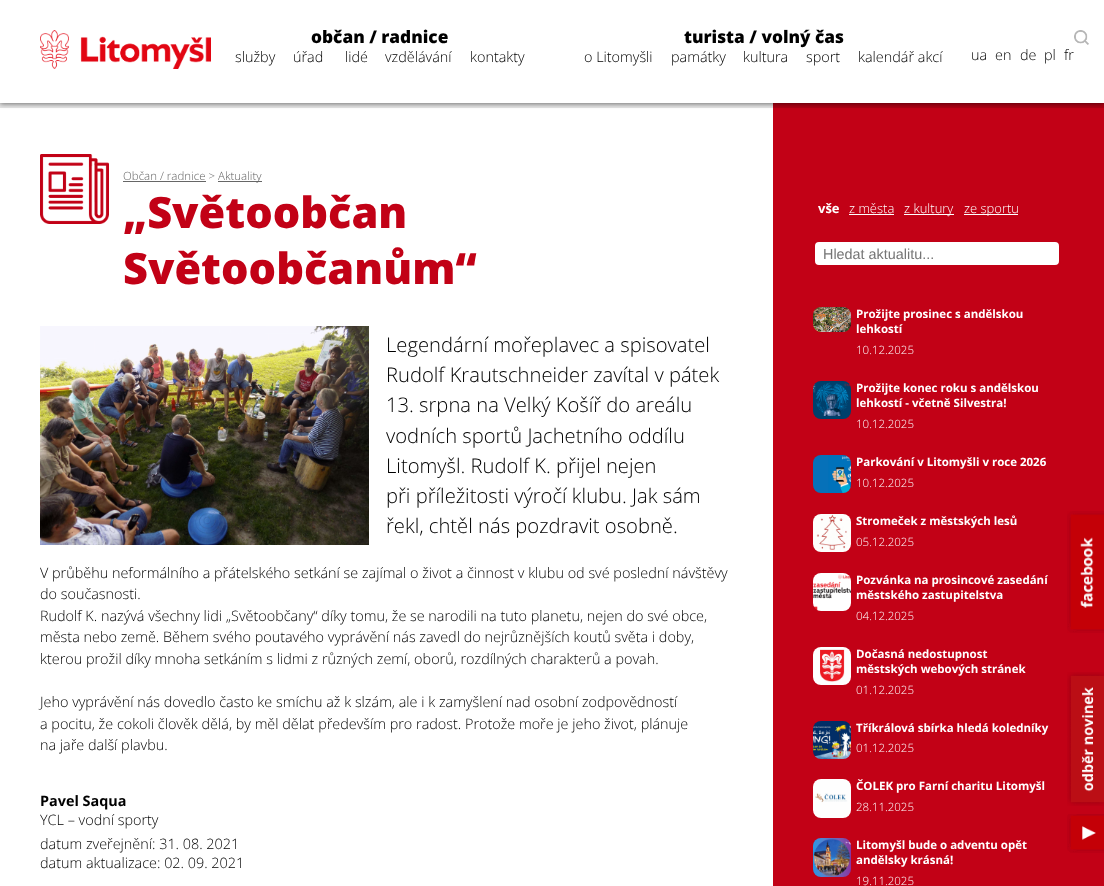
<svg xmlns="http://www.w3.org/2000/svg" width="1104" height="886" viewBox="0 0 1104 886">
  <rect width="100%" height="100%" fill="rgb(255,255,255)"/>
  <rect x="773" y="103" width="331" height="783" fill="rgb(194,1,22)"/>
  <rect x="0" y="1" width="1104" height="103" fill="rgba(0,0,0,0.5)" filter="blur(2.5px)"/>
  <rect x="-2.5" y="-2.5" width="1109" height="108" fill="none" stroke="rgba(0,0,0,0.1)" stroke-width="5"/>
  <rect x="0" y="0" width="1104" height="103" fill="rgb(255,255,255)"/>
  <image x="40" y="30" width="171" height="39" href="pic1.png"/>
  <text x="311" y="43" font-family="Open Sans" font-size="17.25" font-weight="800" fill="rgb(0,0,0)">občan / radnice</text>
  <g font-family="Open Sans" font-size="14.4" font-weight="300" fill="rgb(0,0,0)">
    <text x="235" y="62">služby</text>
    <text x="293" y="62">úřad</text>
    <text x="345" y="62">lidé</text>
    <text x="385" y="62">vzdělávání</text>
    <text x="470" y="62">kontakty</text>
  </g>
  <text x="684" y="43" font-family="Open Sans" font-size="17.25" font-weight="800" fill="rgb(0,0,0)">turista / volný čas</text>
  <g font-family="Open Sans" font-size="14.4" font-weight="300" fill="rgb(0,0,0)">
    <text x="584" y="62">o Litomyšli</text>
    <text x="671" y="62">památky</text>
    <text x="743" y="62">kultura</text>
    <text x="806" y="62">sport</text>
    <text x="858" y="62">kalendář akcí</text>
  </g>
  <image x="1074" y="30" width="15" height="15" href="pic2.png"/>
  <g font-family="Open Sans" font-size="14.4" font-weight="300" fill="rgb(0,0,0)">
    <text x="971" y="60">ua</text>
    <text x="995" y="60">en</text>
    <text x="1020" y="60">de</text>
    <text x="1044" y="60">pl</text>
    <text x="1064" y="60">fr</text>
  </g>
  <image x="40" y="154" width="69" height="70" href="pic3.png"/>
  <text x="123" y="180" font-family="Open Sans" font-size="11.5" font-weight="300" fill="rgb(102,102,102)">Občan / radnice &gt;</text>
  <rect x="123" y="181" width="83" height="1" fill="rgb(102,102,102)"/>
  <rect x="218" y="181" width="44" height="1" fill="rgb(102,102,102)"/>
  <text x="218" y="180" font-family="Open Sans" font-size="11.5" font-weight="300" fill="rgb(102,102,102)">Aktuality</text>
  <g font-family="Open Sans" font-size="43.25" font-weight="800" fill="rgb(194,1,22)">
    <text>
      <tspan x="123" y="228">„Světoobčan</tspan>
      <tspan x="123" y="284">Světoobčanům“</tspan>
    </text>
  </g>
  <image x="40" y="326" width="329" height="219" href="pic4.png"/>
  <g font-family="Open Sans" font-size="20.2" font-weight="300" fill="rgb(0,0,0)">
    <text>
      <tspan x="386" y="352">Legendární mořeplavec a spisovatel</tspan>
      <tspan x="386" y="382">Rudolf Krautschneider zavítal v pátek</tspan>
      <tspan x="386" y="412">13. srpna na Velký Košíř do areálu</tspan>
      <tspan x="386" y="443">vodních sportů Jachetního oddílu</tspan>
      <tspan x="386" y="473">Litomyšl. Rudolf K. přijel nejen</tspan>
      <tspan x="386" y="503">při příležitosti výročí klubu. Jak sám</tspan>
      <tspan x="386" y="533">řekl, chtěl nás pozdravit osobně.</tspan>
    </text>
  </g>
  <g font-family="Open Sans" font-size="14.4" font-weight="300" fill="rgb(0,0,0)">
    <text>
      <tspan x="40" y="578">V průběhu neformálního a přátelského setkání se zajímal o život a činnost v klubu od své poslední návštěvy</tspan>
      <tspan x="40" y="599">do současnosti.</tspan>
      <tspan x="40" y="621">Rudolf K. nazývá všechny lidi „Světoobčany“ díky tomu, že se narodili na tuto planetu, nejen do své obce,</tspan>
      <tspan x="40" y="642">města nebo země. Během svého poutavého vyprávění nás zavedl do nejrůznějších koutů světa i doby,</tspan>
      <tspan x="40" y="664">kterou prožil díky mnoha setkáním s lidmi z různých zemí, oborů, rozdílných charakterů a povah.</tspan>
    </text>
    <text>
      <tspan x="40" y="707">Jeho vyprávění nás dovedlo často ke smíchu až k slzám, ale i k zamyšlení nad osobní zodpovědností</tspan>
      <tspan x="40" y="729">a pocitu, že cokoli člověk dělá, by měl dělat především pro radost. Protože moře je jeho život, plánuje</tspan>
      <tspan x="40" y="750">na jaře další plavbu.</tspan>
    </text>
  </g>
  <text x="40" y="806" font-family="Open Sans" font-size="14.4" font-weight="bold" fill="rgb(0,0,0)">Pavel Saqua</text>
  <g font-family="Open Sans" font-size="14.4" font-weight="300" fill="rgb(0,0,0)">
    <text>
      <tspan x="40" y="825">YCL – vodní sporty</tspan>
      <tspan x="40" y="849">datum zveřejnění: 31. 08. 2021</tspan>
      <tspan x="40" y="868">datum aktualizace: 02. 09. 2021</tspan>
    </text>
  </g>
  <text x="818" y="213" font-family="Open Sans" font-size="13" font-weight="bold" fill="rgb(255,255,255)">vše</text>
  <text x="849" y="213" font-family="Open Sans" font-size="13" font-weight="300" fill="rgb(255,255,255)">z města</text>
  <rect x="849" y="214" width="45" height="1" fill="rgb(255,255,255)"/>
  <rect x="904" y="214" width="50" height="1" fill="rgb(255,255,255)"/>
  <text x="904" y="213" font-family="Open Sans" font-size="13" font-weight="300" fill="rgb(255,255,255)">z kultury</text>
  <rect x="964" y="214" width="54" height="1" fill="rgb(255,255,255)"/>
  <text x="964" y="213" font-family="Open Sans" font-size="13" font-weight="300" fill="rgb(255,255,255)">ze sportu</text>
  <rect x="814" y="241" width="246" height="25" rx="5" fill="rgb(255,255,255)" stroke="rgb(194,1,22)" stroke-width="2"/>
  <text x="823" y="259" font-family="Liberation Sans" font-size="14.4" fill="rgb(117,117,117)">Hledat aktualitu...</text>
  <image x="813" y="307" width="38" height="25" href="pic5.png"/>
  <g font-family="Open Sans" font-size="11.5" font-weight="bold" fill="rgb(255,255,255)">
    <text>
      <tspan x="856" y="318">Prožijte prosinec s andělskou</tspan>
      <tspan x="856" y="333">lehkostí</tspan>
    </text>
  </g>
  <text x="856" y="354" font-family="Open Sans" font-size="11.5" font-weight="300" fill="rgb(255,255,255)">10.12.2025</text>
  <image x="813" y="381" width="38" height="38" href="pic6.png"/>
  <g font-family="Open Sans" font-size="11.5" font-weight="bold" fill="rgb(255,255,255)">
    <text>
      <tspan x="856" y="392">Prožijte konec roku s andělskou</tspan>
      <tspan x="856" y="407">lehkostí - včetně Silvestra!</tspan>
    </text>
  </g>
  <text x="856" y="428" font-family="Open Sans" font-size="11.5" font-weight="300" fill="rgb(255,255,255)">10.12.2025</text>
  <image x="813" y="455" width="38" height="38" href="pic7.png"/>
  <text x="856" y="466" font-family="Open Sans" font-size="11.5" font-weight="bold" fill="rgb(255,255,255)">Parkování v Litomyšli v roce 2026</text>
  <text x="856" y="487" font-family="Open Sans" font-size="11.5" font-weight="300" fill="rgb(255,255,255)">10.12.2025</text>
  <image x="813" y="514" width="38" height="38" href="pic8.png"/>
  <text x="856" y="525" font-family="Open Sans" font-size="11.5" font-weight="bold" fill="rgb(255,255,255)">Stromeček z městských lesů</text>
  <text x="856" y="546" font-family="Open Sans" font-size="11.5" font-weight="300" fill="rgb(255,255,255)">05.12.2025</text>
  <image x="813" y="573" width="38" height="38" href="pic9.png"/>
  <g font-family="Open Sans" font-size="11.5" font-weight="bold" fill="rgb(255,255,255)">
    <text>
      <tspan x="856" y="584">Pozvánka na prosincové zasedání</tspan>
      <tspan x="856" y="599">městského zastupitelstva</tspan>
    </text>
  </g>
  <text x="856" y="620" font-family="Open Sans" font-size="11.5" font-weight="300" fill="rgb(255,255,255)">04.12.2025</text>
  <image x="813" y="647" width="38" height="38" href="pic10.png"/>
  <g font-family="Open Sans" font-size="11.5" font-weight="bold" fill="rgb(255,255,255)">
    <text>
      <tspan x="856" y="658">Dočasná nedostupnost</tspan>
      <tspan x="856" y="673">městských webových stránek</tspan>
    </text>
  </g>
  <text x="856" y="694" font-family="Open Sans" font-size="11.5" font-weight="300" fill="rgb(255,255,255)">01.12.2025</text>
  <image x="813" y="721" width="38" height="38" href="pic11.png"/>
  <text x="856" y="732" font-family="Open Sans" font-size="11.5" font-weight="bold" fill="rgb(255,255,255)">Tříkrálová sbírka hledá koledníky</text>
  <text x="856" y="752" font-family="Open Sans" font-size="11.5" font-weight="300" fill="rgb(255,255,255)">01.12.2025</text>
  <image x="813" y="779" width="38" height="39" href="pic12.png"/>
  <text x="856" y="790" font-family="Open Sans" font-size="11.5" font-weight="bold" fill="rgb(255,255,255)">ČOLEK pro Farní charitu Litomyšl</text>
  <text x="856" y="811" font-family="Open Sans" font-size="11.5" font-weight="300" fill="rgb(255,255,255)">28.11.2025</text>
  <image x="813" y="838" width="38" height="39" href="pic13.png"/>
  <g font-family="Open Sans" font-size="11.5" font-weight="bold" fill="rgb(255,255,255)">
    <text>
      <tspan x="856" y="849">Litomyšl bude o adventu opět</tspan>
      <tspan x="856" y="864">andělsky krásná!</tspan>
    </text>
  </g>
  <text x="856" y="885" font-family="Open Sans" font-size="11.5" font-weight="300" fill="rgb(255,255,255)">19.11.2025</text>
  <image x="1067" y="511" width="37" height="122" href="pic14.png"/>
  <image x="1067" y="672" width="37" height="134" href="pic15.png"/>
  <image x="1067" y="814" width="37" height="39" href="pic16.png"/>
</svg>
